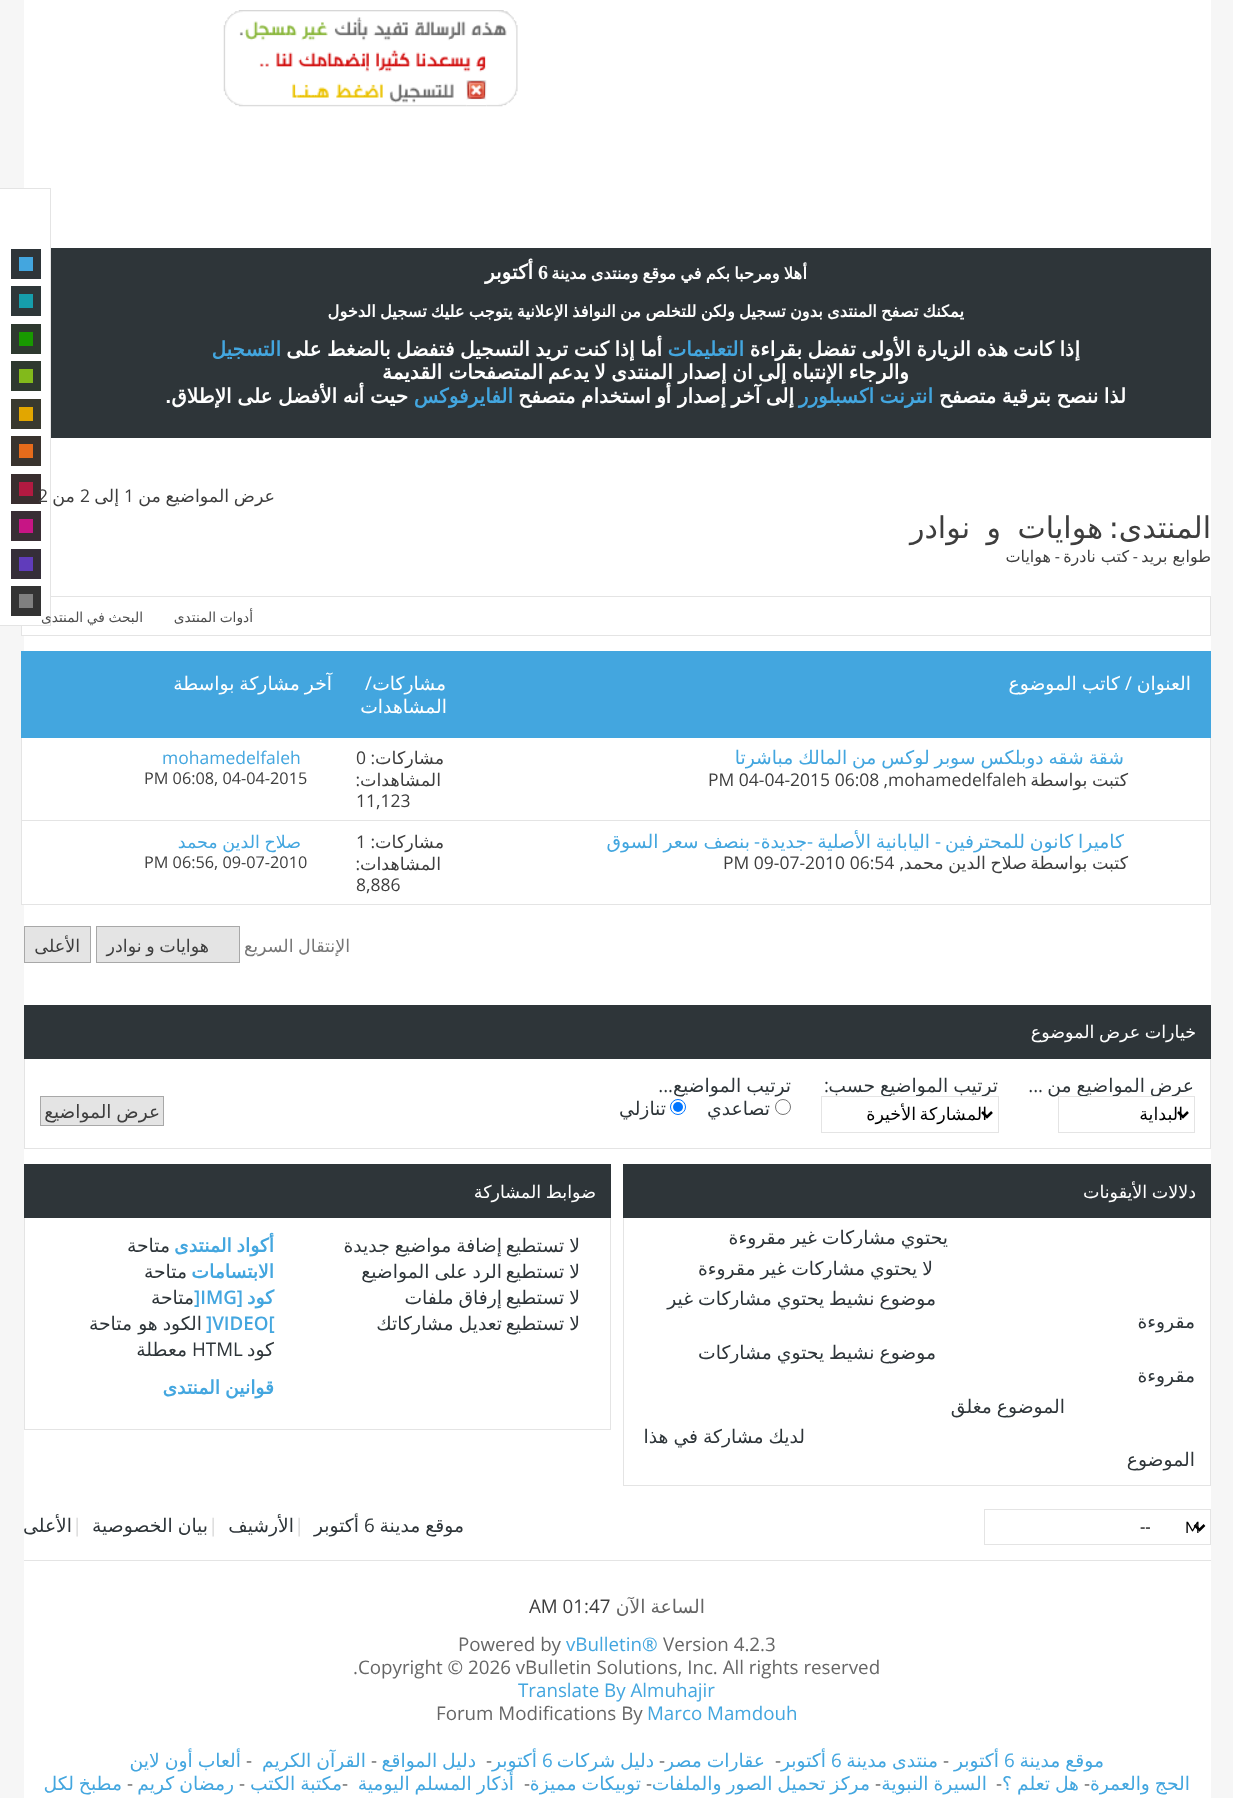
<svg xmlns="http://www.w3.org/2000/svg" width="1233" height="1798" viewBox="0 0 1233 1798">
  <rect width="100%" height="100%" fill="rgb(246,246,246)"/>
  <rect x="24" y="0" width="1187" height="1798" fill="rgb(255,255,255)"/>
  <rect x="22" y="597" width="2" height="38" fill="rgb(255,255,255)"/>
  <rect x="21.5" y="596.5" width="1189" height="39" fill="none" stroke="rgb(228,228,228)"/>
  <rect x="-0.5" y="188.5" width="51" height="437" fill="rgb(255,255,255)" stroke="rgb(228,228,228)"/>
  <rect x="15" y="253" width="22" height="22" fill="rgb(67,166,223)" stroke="rgb(46,53,57)" stroke-width="8"/>
  <rect x="15" y="290" width="22" height="22" fill="rgb(22,158,171)" stroke="rgb(46,55,57)" stroke-width="8"/>
  <rect x="15" y="328" width="22" height="22" fill="rgb(24,153,0)" stroke="rgb(46,57,47)" stroke-width="8"/>
  <rect x="15" y="365" width="22" height="22" fill="rgb(130,186,27)" stroke="rgb(46,57,47)" stroke-width="8"/>
  <rect x="15" y="403" width="22" height="22" fill="rgb(226,166,0)" stroke="rgb(57,57,46)" stroke-width="8"/>
  <rect x="15" y="440" width="22" height="22" fill="rgb(230,107,27)" stroke="rgb(57,51,46)" stroke-width="8"/>
  <rect x="15" y="478" width="22" height="22" fill="rgb(178,26,65)" stroke="rgb(57,46,47)" stroke-width="8"/>
  <rect x="15" y="515" width="22" height="22" fill="rgb(199,21,133)" stroke="rgb(57,46,53)" stroke-width="8"/>
  <rect x="15" y="553" width="22" height="22" fill="rgb(96,60,187)" stroke="rgb(53,46,57)" stroke-width="8"/>
  <rect x="15" y="590" width="22" height="22" fill="rgb(128,128,128)" stroke="rgb(51,51,51)" stroke-width="8"/>
  <image x="223" y="10" width="295" height="70" href="pic1.png"/>
  <image x="486" y="80" width="32" height="27" href="pic2.png"/>
  <image x="466" y="80" width="21" height="20" href="pic3.png"/>
  <image x="223" y="80" width="244" height="27" href="pic4.png"/>
  <image x="466" y="105" width="20" height="2" href="pic5.png"/>
  <rect x="51" y="248" width="1160" height="190" fill="rgb(46,53,57)"/>
  <g font-family="DejaVu Sans" font-size="16.25" font-weight="bold" direction="rtl" fill="rgb(255,255,255)">
    <text x="807" y="279">أ</text>
    <text x="802" y="279" word-spacing="-1">هلا ومرحبا</text>
    <text x="730" y="279" word-spacing="-1">بكم في موقع ومنتدى مدينة</text>
  </g>
  <text x="538" y="279" font-family="Liberation Serif" font-size="20" font-weight="bold" fill="rgb(255,255,255)">6</text>
  <text x="533" y="279" font-family="DejaVu Sans" font-size="20" font-weight="bold" direction="rtl" fill="rgb(255,255,255)">أكتوبر</text>
  <g font-family="DejaVu Sans" font-size="16.25" font-weight="bold" direction="rtl" fill="rgb(255,255,255)">
    <text x="964" y="317" word-spacing="-1">يمكنك تصفح المنتدى بدون تسجيل ولكن للتخلص</text>
    <text x="641" y="317" word-spacing="-1">من النوافذ الإعلانية يتوجب عليك تسجيل الدخول</text>
  </g>
  <g font-family="DejaVu Sans" font-size="20" font-weight="bold" direction="rtl" fill="rgb(255,255,255)">
    <text x="1080" y="356">إ</text>
    <text x="1074" y="356" word-spacing="-0.75">ذا كانت</text>
    <text x="1008" y="356" word-spacing="-0.75">هذه الزيارة الأولى تفضل بقراءة</text>
  </g>
  <text x="744" y="356" font-family="DejaVu Sans" font-size="20" font-weight="bold" direction="rtl" fill="rgb(67,166,223)">التعليمات</text>
  <g font-family="DejaVu Sans" font-size="20" font-weight="bold" direction="rtl" fill="rgb(255,255,255)">
    <text x="662" y="356">أ</text>
    <text x="657" y="356" word-spacing="-0.75">ما إذا كنت</text>
    <text x="568" y="356" word-spacing="-0.75">تريد التسجيل فتفضل بالضغط على</text>
  </g>
  <text x="281" y="356" font-family="DejaVu Sans" font-size="20" font-weight="bold" direction="rtl" fill="rgb(67,166,223)">التسجيل</text>
  <g font-family="DejaVu Sans" font-size="20" font-weight="bold" direction="rtl" fill="rgb(255,255,255)">
    <text x="909" y="379" word-spacing="-0.75">والرجاء الإنتباه إلى ان إصدار المنتدى لا</text>
    <text x="589" y="379">يدعم</text>
    <text x="543" y="379">المتصفحات القديمة</text>
    <text x="1126" y="403" word-spacing="-0.75">لذا ننصح بترقية متصفح</text>
  </g>
  <text x="933" y="403" word-spacing="-0.75" font-family="DejaVu Sans" font-size="20" font-weight="bold" direction="rtl" fill="rgb(67,166,223)">انترنت اكسبلورر</text>
  <g font-family="DejaVu Sans" font-size="20" font-weight="bold" direction="rtl" fill="rgb(255,255,255)">
    <text x="794" y="403" word-spacing="-1">إلى آخر إصدار</text>
    <text x="671" y="403">أ</text>
    <text x="666" y="403" word-spacing="-0.75">و استخدام متصفح</text>
  </g>
  <text x="513" y="403" font-family="DejaVu Sans" font-size="20" font-weight="bold" direction="rtl" fill="rgb(67,166,223)">الفايرفوكس</text>
  <g font-family="DejaVu Sans" font-size="20" font-weight="bold" direction="rtl" fill="rgb(255,255,255)">
    <text x="408" y="403">حيت</text>
    <text x="364" y="403">أ</text>
    <text x="359" y="403" word-spacing="-0.75">نه الأفضل على الإطلاق</text>
  </g>
  <text x="171" y="403" font-family="Liberation Sans" font-size="20" font-weight="bold" direction="rtl" fill="rgb(255,255,255)">.</text>
  <text x="275" y="502" word-spacing="-1" font-family="DejaVu Sans" font-size="17.5" direction="rtl" fill="rgb(62,62,62)">عرض المواضيع من</text>
  <text x="124" y="502" font-family="Open Sans" font-size="17.5" fill="rgb(62,62,62)">1</text>
  <text x="119" y="502" font-family="DejaVu Sans" font-size="17.5" direction="rtl" fill="rgb(62,62,62)">إلى</text>
  <text x="80" y="502" font-family="Open Sans" font-size="17.5" fill="rgb(62,62,62)">2</text>
  <text x="75" y="502" font-family="DejaVu Sans" font-size="17.5" direction="rtl" fill="rgb(62,62,62)">من</text>
  <text x="38" y="502" font-family="Open Sans" font-size="17.5" fill="rgb(62,62,62)">2</text>
  <g font-family="DejaVu Sans" font-size="30" letter-spacing="-1.25" direction="rtl" fill="rgb(62,62,62)">
    <text x="1211" y="538">المنتدى:</text>
    <text x="1103" y="538" word-spacing="7">هوايات و نوادر</text>
  </g>
  <text x="1211" y="562" font-family="DejaVu Sans" font-size="16" direction="rtl" fill="rgb(62,62,62)">طوابع بريد</text>
  <text x="1138" y="562" font-family="Open Sans" font-size="16" direction="rtl" fill="rgb(62,62,62)">-</text>
  <text x="1129" y="562" font-family="DejaVu Sans" font-size="16" direction="rtl" fill="rgb(62,62,62)">كتب نادرة</text>
  <text x="1060" y="562" font-family="Open Sans" font-size="16" direction="rtl" fill="rgb(62,62,62)">-</text>
  <text x="1051" y="562" font-family="DejaVu Sans" font-size="16" direction="rtl" fill="rgb(62,62,62)">هوايات</text>
  <g font-family="DejaVu Sans" font-size="13.75" direction="rtl" fill="rgb(78,78,78)">
    <text x="253" y="622" word-spacing="-0.75">أدوات المنتدى</text>
    <text x="143" y="622" word-spacing="-0.75">البحث في المنتدى</text>
  </g>
  <rect x="21" y="651" width="1190" height="87" fill="rgb(67,166,223)"/>
  <text x="1191" y="690" font-family="DejaVu Sans" font-size="18.75" direction="rtl" fill="rgb(255,255,255)">العنوان</text>
  <text x="1125" y="690" font-family="Open Sans" font-size="18.75" fill="rgb(255,255,255)">/</text>
  <g font-family="DejaVu Sans" font-size="18.75" direction="rtl" fill="rgb(255,255,255)">
    <text x="1120" y="690" word-spacing="-1">كاتب الموضوع</text>
    <text x="446" y="690">مشاركات</text>
  </g>
  <text x="365" y="690" font-family="Open Sans" font-size="18.75" fill="rgb(255,255,255)">/</text>
  <g font-family="DejaVu Sans" font-size="18.75" direction="rtl" fill="rgb(255,255,255)">
    <text x="447" y="713">المشاهدات</text>
    <text x="332" y="690" word-spacing="-1">آخر مشاركة بواسطة</text>
  </g>
  <rect x="22" y="738" width="2" height="82" fill="rgb(255,255,255)"/>
  <rect x="1210" y="738" width="1" height="167" fill="rgb(228,228,228)"/>
  <rect x="21" y="820" width="1190" height="1" fill="rgb(228,228,228)"/>
  <rect x="21" y="738" width="1" height="83" fill="rgb(228,228,228)"/>
  <text x="1124" y="764" word-spacing="-1" font-family="DejaVu Sans" font-size="18.75" direction="rtl" fill="rgb(67,166,223)">شقة شقه دوبلكس سوبر لوكس من المالك مباشرتا</text>
  <text x="1128" y="786" word-spacing="-1" font-family="DejaVu Sans" font-size="17.5" direction="rtl" fill="rgb(62,62,62)">كتبت بواسطة</text>
  <text x="888" y="786" font-family="Open Sans" font-size="17.5" fill="rgb(62,62,62)">mohamedelfaleh</text>
  <text x="888" y="786" font-family="Open Sans" font-size="17.5" direction="rtl" fill="rgb(62,62,62)">,</text>
  <text x="708" y="786" font-family="Open Sans" font-size="17.5" fill="rgb(62,62,62)">PM 04-04-2015 06:08</text>
  <text x="444" y="764" font-family="DejaVu Sans" font-size="17.5" direction="rtl" fill="rgb(62,62,62)">مشاركات</text>
  <text x="375" y="764" font-family="Open Sans" font-size="17.5" direction="rtl" fill="rgb(62,62,62)">:</text>
  <text x="356" y="764" font-family="Open Sans" font-size="17.5" fill="rgb(62,62,62)">0</text>
  <text x="441" y="786" font-family="DejaVu Sans" font-size="17.5" direction="rtl" fill="rgb(62,62,62)">المشاهدات</text>
  <text x="360" y="786" font-family="Open Sans" font-size="17.5" direction="rtl" fill="rgb(62,62,62)">:</text>
  <text x="356" y="807" font-family="Open Sans" font-size="17.5" fill="rgb(62,62,62)">11,123</text>
  <text x="162" y="764" font-family="Open Sans" font-size="17.5" fill="rgb(67,166,223)">mohamedelfaleh</text>
  <g font-family="Open Sans" font-size="16.25" fill="rgb(62,62,62)">
    <text x="214" y="784">, 04-04-2015</text>
    <text x="144" y="784">PM 06:08</text>
  </g>
  <rect x="22" y="821" width="2" height="83" fill="rgb(255,255,255)"/>
  <rect x="21" y="904" width="1190" height="1" fill="rgb(228,228,228)"/>
  <rect x="21" y="821" width="1" height="84" fill="rgb(228,228,228)"/>
  <text x="1124" y="848" word-spacing="-1" font-family="DejaVu Sans" font-size="18.75" direction="rtl" fill="rgb(67,166,223)">كاميرا كانون للمحترفين</text>
  <text x="941" y="848" font-family="Open Sans" font-size="18.75" direction="rtl" fill="rgb(67,166,223)">-</text>
  <text x="930" y="848" word-spacing="-1" font-family="DejaVu Sans" font-size="18.75" direction="rtl" fill="rgb(67,166,223)">اليابانية الأصلية</text>
  <text x="813" y="848" font-family="Open Sans" font-size="18.75" direction="rtl" fill="rgb(67,166,223)">-</text>
  <text x="807" y="848" font-family="DejaVu Sans" font-size="18.75" direction="rtl" fill="rgb(67,166,223)">جديدة</text>
  <text x="760" y="848" font-family="Open Sans" font-size="18.75" direction="rtl" fill="rgb(67,166,223)">-</text>
  <text x="750" y="848" word-spacing="-1" font-family="DejaVu Sans" font-size="18.75" direction="rtl" fill="rgb(67,166,223)">بنصف سعر السوق</text>
  <g font-family="DejaVu Sans" font-size="17.5" direction="rtl" fill="rgb(62,62,62)">
    <text x="1128" y="869" word-spacing="-1">كتبت بواسطة</text>
    <text x="1027" y="869" word-spacing="-1">صلاح الدين محمد</text>
  </g>
  <text x="904" y="869" font-family="Open Sans" font-size="17.5" direction="rtl" fill="rgb(62,62,62)">,</text>
  <text x="723" y="869" font-family="Open Sans" font-size="17.5" fill="rgb(62,62,62)">PM 09-07-2010 06:54</text>
  <text x="444" y="848" font-family="DejaVu Sans" font-size="17.5" direction="rtl" fill="rgb(62,62,62)">مشاركات</text>
  <text x="375" y="848" font-family="Open Sans" font-size="17.5" direction="rtl" fill="rgb(62,62,62)">:</text>
  <text x="356" y="848" font-family="Open Sans" font-size="17.5" fill="rgb(62,62,62)">1</text>
  <text x="441" y="870" font-family="DejaVu Sans" font-size="17.5" direction="rtl" fill="rgb(62,62,62)">المشاهدات</text>
  <text x="360" y="870" font-family="Open Sans" font-size="17.5" direction="rtl" fill="rgb(62,62,62)">:</text>
  <text x="356" y="891" font-family="Open Sans" font-size="17.5" fill="rgb(62,62,62)">8,886</text>
  <text x="301" y="848" word-spacing="-1" font-family="DejaVu Sans" font-size="17.5" direction="rtl" fill="rgb(67,166,223)">صلاح الدين محمد</text>
  <g font-family="Open Sans" font-size="16.25" fill="rgb(62,62,62)">
    <text x="214" y="868">, 09-07-2010</text>
    <text x="144" y="868">PM 06:56</text>
  </g>
  <text x="350" y="952" word-spacing="-1" font-family="DejaVu Sans" font-size="17.5" direction="rtl" fill="rgb(119,119,119)">الإنتقال السريع</text>
  <rect x="96.5" y="926.5" width="143" height="36" fill="rgb(228,228,228)" stroke="rgb(168,168,168)"/>
  <text x="209" y="952" word-spacing="-1" font-family="DejaVu Sans" font-size="17.5" direction="rtl" fill="rgb(62,62,62)">هوايات و نوادر</text>
  <rect x="24.5" y="926.5" width="66" height="36" fill="rgb(228,228,228)" stroke="rgb(168,168,168)"/>
  <text x="80" y="952" font-family="DejaVu Sans" font-size="17.5" direction="rtl" fill="rgb(62,62,62)">الأعلى</text>
  <rect x="24" y="1005" width="1187" height="54" fill="rgb(46,53,57)"/>
  <text x="1196" y="1038" word-spacing="-1" font-family="DejaVu Sans" font-size="17.5" direction="rtl" fill="rgb(255,255,255)">خيارات عرض الموضوع</text>
  <rect x="1210" y="1059" width="1" height="90" fill="rgb(228,228,228)"/>
  <rect x="24" y="1148" width="1187" height="1" fill="rgb(228,228,228)"/>
  <rect x="24" y="1059" width="1" height="90" fill="rgb(228,228,228)"/>
  <text x="1194" y="1092" word-spacing="-1" font-family="DejaVu Sans" font-size="18.75" direction="rtl" fill="rgb(46,53,57)">عرض المواضيع من</text>
  <text x="1043" y="1092" font-family="Open Sans" font-size="18.75" direction="rtl" fill="rgb(46,53,57)">...</text>
  <rect x="1058.5" y="1096.5" width="136" height="36" fill="none" stroke="rgb(228,228,228)"/>
  <path d="M1178 1112L1183 1117L1188 1112" fill="none" stroke="rgb(0,0,0)" stroke-width="2.5"/>
  <text x="1183" y="1120" font-family="DejaVu Sans" font-size="17.5" direction="rtl" fill="rgb(0,0,0)">البداية</text>
  <text x="998" y="1092" word-spacing="-1" font-family="DejaVu Sans" font-size="18.75" direction="rtl" fill="rgb(46,53,57)">ترتيب المواضيع حسب</text>
  <text x="829" y="1092" font-family="Open Sans" font-size="18.75" direction="rtl" fill="rgb(46,53,57)">:</text>
  <rect x="821.5" y="1096.5" width="177" height="36" fill="none" stroke="rgb(228,228,228)"/>
  <path d="M982 1112L987 1117L992 1112" fill="none" stroke="rgb(0,0,0)" stroke-width="2.5"/>
  <text x="987" y="1120" word-spacing="-2" font-family="DejaVu Sans" font-size="17.5" direction="rtl" fill="rgb(0,0,0)">المشاركة الأخيرة</text>
  <text x="791" y="1092" word-spacing="-1" font-family="DejaVu Sans" font-size="18.75" direction="rtl" fill="rgb(46,53,57)">ترتيب المواضيع</text>
  <text x="673" y="1092" font-family="Open Sans" font-size="18.75" direction="rtl" fill="rgb(46,53,57)">...</text>
  <circle cx="783" cy="1107" r="7.5" fill="none" stroke="rgb(118,118,118)"/>
  <text x="770" y="1115" font-family="DejaVu Sans" font-size="18.75" direction="rtl" fill="rgb(46,53,57)">تصاعدي</text>
  <circle cx="678" cy="1107" r="7.5" fill="none" stroke="rgb(0,117,255)"/>
  <circle cx="678" cy="1107" r="5" fill="rgb(0,117,255)"/>
  <text x="666" y="1115" font-family="DejaVu Sans" font-size="18.75" direction="rtl" fill="rgb(46,53,57)">تنازلي</text>
  <rect x="40.5" y="1096.5" width="123" height="29" fill="rgb(228,228,228)" stroke="rgb(168,168,168)"/>
  <text x="160" y="1118" word-spacing="-1" font-family="DejaVu Sans" font-size="18.5" direction="rtl" fill="rgb(62,62,62)">عرض المواضيع</text>
  <rect x="623" y="1164" width="588" height="54" fill="rgb(46,53,57)"/>
  <text x="1196" y="1198" word-spacing="-1" font-family="DejaVu Sans" font-size="17.5" direction="rtl" fill="rgb(255,255,255)">دلالات الأيقونات</text>
  <rect x="1210" y="1218" width="1" height="268" fill="rgb(228,228,228)"/>
  <rect x="623" y="1485" width="588" height="1" fill="rgb(228,228,228)"/>
  <rect x="623" y="1218" width="1" height="268" fill="rgb(228,228,228)"/>
  <g font-family="DejaVu Sans" font-size="18.75" direction="rtl" fill="rgb(46,53,57)">
    <text x="948" y="1244" word-spacing="-1">يحتوي مشاركات غير مقروءة</text>
    <text x="933" y="1275" word-spacing="-1">لا يحتوي مشاركات غير مقروءة</text>
    <text x="936" y="1305" word-spacing="-1">موضوع نشيط يحتوي مشاركات غير</text>
    <text x="1195" y="1328">مقروءة</text>
    <text x="936" y="1359" word-spacing="-1">موضوع نشيط يحتوي مشاركات</text>
    <text x="1195" y="1382">مقروءة</text>
    <text x="1065" y="1413" word-spacing="-1">الموضوع مغلق</text>
    <text x="805" y="1443" word-spacing="-1">لديك مشاركة في هذا</text>
    <text x="1195" y="1466">الموضوع</text>
  </g>
  <rect x="24" y="1164" width="587" height="54" fill="rgb(46,53,57)"/>
  <text x="596" y="1198" word-spacing="-1" font-family="DejaVu Sans" font-size="17.5" direction="rtl" fill="rgb(255,255,255)">ضوابط المشاركة</text>
  <rect x="610" y="1218" width="1" height="212" fill="rgb(228,228,228)"/>
  <rect x="24" y="1429" width="587" height="1" fill="rgb(228,228,228)"/>
  <rect x="24" y="1218" width="1" height="212" fill="rgb(228,228,228)"/>
  <g font-family="DejaVu Sans" font-size="18.75" direction="rtl" fill="rgb(46,53,57)">
    <text x="580" y="1252" word-spacing="-1">لا تستطيع</text>
    <text x="502" y="1252" word-spacing="-1">إضافة مواضيع جديدة</text>
    <text x="580" y="1278" word-spacing="-1">لا تستطيع</text>
    <text x="502" y="1278" word-spacing="-1">الرد على المواضيع</text>
    <text x="580" y="1304" word-spacing="-1">لا تستطيع</text>
    <text x="502" y="1304" word-spacing="-1">إرفاق ملفات</text>
    <text x="580" y="1330" word-spacing="-1">لا تستطيع</text>
    <text x="502" y="1330" word-spacing="-1">تعديل مشاركاتك</text>
  </g>
  <text x="274" y="1252" word-spacing="-1" font-family="DejaVu Sans" font-size="18.75" font-weight="bold" direction="rtl" fill="rgb(67,166,223)">أكواد المنتدى</text>
  <text x="170" y="1252" font-family="DejaVu Sans" font-size="18.75" direction="rtl" fill="rgb(46,53,57)">متاحة</text>
  <text x="274" y="1278" font-family="DejaVu Sans" font-size="18.75" font-weight="bold" direction="rtl" fill="rgb(67,166,223)">الابتسامات</text>
  <text x="187" y="1278" font-family="DejaVu Sans" font-size="18.75" direction="rtl" fill="rgb(46,53,57)">متاحة</text>
  <text x="274" y="1304" font-family="DejaVu Sans" font-size="18.75" font-weight="bold" direction="rtl" fill="rgb(67,166,223)">كود</text>
  <text x="243" y="1304" font-family="Open Sans" font-size="18.75" font-weight="600" direction="rtl" fill="rgb(67,166,223)">[</text>
  <text x="194" y="1304" font-family="Open Sans" font-size="18.75" font-weight="600" fill="rgb(67,166,223)">]IMG</text>
  <text x="194" y="1304" font-family="DejaVu Sans" font-size="18.75" direction="rtl" fill="rgb(46,53,57)">متاحة</text>
  <text x="206" y="1330" font-family="Open Sans" font-size="18.75" font-weight="600" fill="rgb(67,166,223)">]VIDEO[</text>
  <g font-family="DejaVu Sans" font-size="18.75" direction="rtl" fill="rgb(46,53,57)">
    <text x="202" y="1330" word-spacing="-1">الكود هو</text>
    <text x="132" y="1330">متاحة</text>
    <text x="274" y="1356">كود</text>
  </g>
  <text x="192" y="1356" font-family="Open Sans" font-size="18.75" fill="rgb(46,53,57)">HTML</text>
  <text x="187" y="1356" font-family="DejaVu Sans" font-size="18.75" direction="rtl" fill="rgb(46,53,57)">معطلة</text>
  <text x="274" y="1394" word-spacing="-1" font-family="DejaVu Sans" font-size="18.75" font-weight="bold" direction="rtl" fill="rgb(67,166,223)">قوانين المنتدى</text>
  <rect x="24" y="1560" width="1187" height="1" fill="rgb(228,228,228)"/>
  <rect x="984.5" y="1509.5" width="226" height="35" fill="none" stroke="rgb(228,228,228)"/>
  <path d="M1194.5 1525L1199.5 1530L1204.5 1525" fill="none" stroke="rgb(0,0,0)" stroke-width="2.5"/>
  <g font-family="Carlito" font-size="17.5" fill="rgb(0,0,0)">
    <text x="1185" y="1533">M</text>
    <text x="1140" y="1533">--</text>
  </g>
  <text x="464" y="1532" word-spacing="-1" font-family="DejaVu Sans" font-size="18.75" direction="rtl" fill="rgb(46,53,57)">موقع مدينة</text>
  <text x="364" y="1532" font-family="Open Sans" font-size="18.75" fill="rgb(46,53,57)">6</text>
  <text x="359" y="1532" font-family="DejaVu Sans" font-size="18.75" direction="rtl" fill="rgb(46,53,57)">أكتوبر</text>
  <text x="294" y="1532" font-family="Open Sans" font-size="18.75" fill="rgb(216,216,216)">|</text>
  <text x="294" y="1532" font-family="DejaVu Sans" font-size="18.75" direction="rtl" fill="rgb(46,53,57)">الأرشيف</text>
  <text x="208" y="1532" font-family="Open Sans" font-size="18.75" fill="rgb(216,216,216)">|</text>
  <text x="208" y="1532" word-spacing="-1" font-family="DejaVu Sans" font-size="18.75" direction="rtl" fill="rgb(46,53,57)">بيان الخصوصية</text>
  <text x="72" y="1532" font-family="Open Sans" font-size="18.75" fill="rgb(216,216,216)">|</text>
  <text x="72" y="1532" font-family="DejaVu Sans" font-size="18.75" direction="rtl" fill="rgb(46,53,57)">الأعلى</text>
  <text x="705" y="1613" word-spacing="-1" font-family="DejaVu Sans" font-size="18.75" direction="rtl" fill="rgb(102,102,102)">الساعة الآن</text>
  <text x="529" y="1613" font-family="Open Sans" font-size="18.75" fill="rgb(62,62,62)">AM 01:47</text>
  <text x="663" y="1651" font-family="Open Sans" font-size="18.75" fill="rgb(102,102,102)">Version 4.2.3</text>
  <text x="566" y="1651" font-family="Open Sans" font-size="18.75" fill="rgb(67,166,223)">vBulletin®</text>
  <g font-family="Open Sans" font-size="18.75" fill="rgb(102,102,102)">
    <text x="458" y="1651">Powered by</text>
    <text x="353" y="1674">.Copyright © 2026 vBulletin Solutions, Inc. All rights reserved</text>
  </g>
  <g font-family="Open Sans" font-size="18.75" fill="rgb(67,166,223)">
    <text x="518" y="1697">Translate By Almuhajir</text>
    <text x="647" y="1720">Marco Mamdouh</text>
  </g>
  <text x="436" y="1720" font-family="Open Sans" font-size="18.75" fill="rgb(102,102,102)">Forum Modifications By</text>
  <text x="1104" y="1767" word-spacing="-1" font-family="DejaVu Sans" font-size="18.75" direction="rtl" fill="rgb(67,166,223)">موقع مدينة</text>
  <text x="1004" y="1767" font-family="Open Sans" font-size="18.75" fill="rgb(67,166,223)">6</text>
  <text x="999" y="1767" font-family="DejaVu Sans" font-size="18.75" direction="rtl" fill="rgb(67,166,223)">أكتوبر</text>
  <text x="943" y="1767" font-family="Open Sans" font-size="18.75" fill="rgb(102,102,102)">-</text>
  <text x="938" y="1767" word-spacing="-1" font-family="DejaVu Sans" font-size="18.75" direction="rtl" fill="rgb(67,166,223)">منتدى مدينة</text>
  <text x="831" y="1767" font-family="Open Sans" font-size="18.75" fill="rgb(67,166,223)">6</text>
  <text x="826" y="1767" font-family="DejaVu Sans" font-size="18.75" direction="rtl" fill="rgb(67,166,223)">أكتوبر</text>
  <text x="775" y="1767" font-family="Open Sans" font-size="18.75" fill="rgb(102,102,102)">-</text>
  <text x="765" y="1767" word-spacing="-1" font-family="DejaVu Sans" font-size="18.75" direction="rtl" fill="rgb(67,166,223)">عقارات مصر</text>
  <text x="659" y="1767" font-family="Open Sans" font-size="18.75" fill="rgb(102,102,102)">-</text>
  <text x="654" y="1767" word-spacing="-1" font-family="DejaVu Sans" font-size="18.75" direction="rtl" fill="rgb(67,166,223)">دليل شركات</text>
  <text x="542" y="1767" font-family="Open Sans" font-size="18.75" fill="rgb(67,166,223)">6</text>
  <text x="537" y="1767" font-family="DejaVu Sans" font-size="18.75" direction="rtl" fill="rgb(67,166,223)">أكتوبر</text>
  <text x="486" y="1767" font-family="Open Sans" font-size="18.75" fill="rgb(102,102,102)">-</text>
  <text x="476" y="1767" word-spacing="-1" font-family="DejaVu Sans" font-size="18.75" direction="rtl" fill="rgb(67,166,223)">دليل المواقع</text>
  <text x="371" y="1767" font-family="Open Sans" font-size="18.75" fill="rgb(102,102,102)">-</text>
  <text x="366" y="1767" word-spacing="-1" font-family="DejaVu Sans" font-size="18.75" direction="rtl" fill="rgb(67,166,223)">القرآن الكريم</text>
  <text x="246" y="1767" font-family="Open Sans" font-size="18.75" fill="rgb(102,102,102)">-</text>
  <g font-family="DejaVu Sans" font-size="18.75" direction="rtl" fill="rgb(67,166,223)">
    <text x="241" y="1767" word-spacing="-1">ألعاب أون لاين</text>
    <text x="1190" y="1790" word-spacing="-1">الحج والعمرة</text>
  </g>
  <text x="1084" y="1790" font-family="Open Sans" font-size="18.75" fill="rgb(102,102,102)">-</text>
  <text x="1079" y="1790" word-spacing="-1" font-family="DejaVu Sans" font-size="18.75" direction="rtl" fill="rgb(67,166,223)">هل تعلم ؟</text>
  <text x="996" y="1790" font-family="Open Sans" font-size="18.75" fill="rgb(102,102,102)">-</text>
  <text x="987" y="1790" word-spacing="-1" font-family="DejaVu Sans" font-size="18.75" direction="rtl" fill="rgb(67,166,223)">السيرة النبوية</text>
  <text x="875" y="1790" font-family="Open Sans" font-size="18.75" fill="rgb(102,102,102)">-</text>
  <text x="870" y="1790" word-spacing="-1" font-family="DejaVu Sans" font-size="18.75" direction="rtl" fill="rgb(67,166,223)">مركز تحميل الصور والملفات</text>
  <text x="646" y="1790" font-family="Open Sans" font-size="18.75" fill="rgb(102,102,102)">-</text>
  <text x="641" y="1790" word-spacing="-1" font-family="DejaVu Sans" font-size="18.75" direction="rtl" fill="rgb(67,166,223)">توبيكات مميزة</text>
  <text x="524" y="1790" font-family="Open Sans" font-size="18.75" fill="rgb(102,102,102)">-</text>
  <text x="514" y="1790" word-spacing="-1" font-family="DejaVu Sans" font-size="18.75" direction="rtl" fill="rgb(67,166,223)">أذكار المسلم اليومية</text>
  <text x="342" y="1790" font-family="Open Sans" font-size="18.75" fill="rgb(102,102,102)">-</text>
  <text x="342" y="1790" word-spacing="-1" font-family="DejaVu Sans" font-size="18.75" direction="rtl" fill="rgb(67,166,223)">مكتبة الكتب</text>
  <text x="239" y="1790" font-family="Open Sans" font-size="18.75" fill="rgb(102,102,102)">-</text>
  <text x="234" y="1790" word-spacing="-1" font-family="DejaVu Sans" font-size="18.75" direction="rtl" fill="rgb(67,166,223)">رمضان كريم</text>
  <text x="127" y="1790" font-family="Open Sans" font-size="18.75" fill="rgb(102,102,102)">-</text>
  <text x="122" y="1790" word-spacing="-1" font-family="DejaVu Sans" font-size="18.75" direction="rtl" fill="rgb(67,166,223)">مطبخ لكل</text>
</svg>
